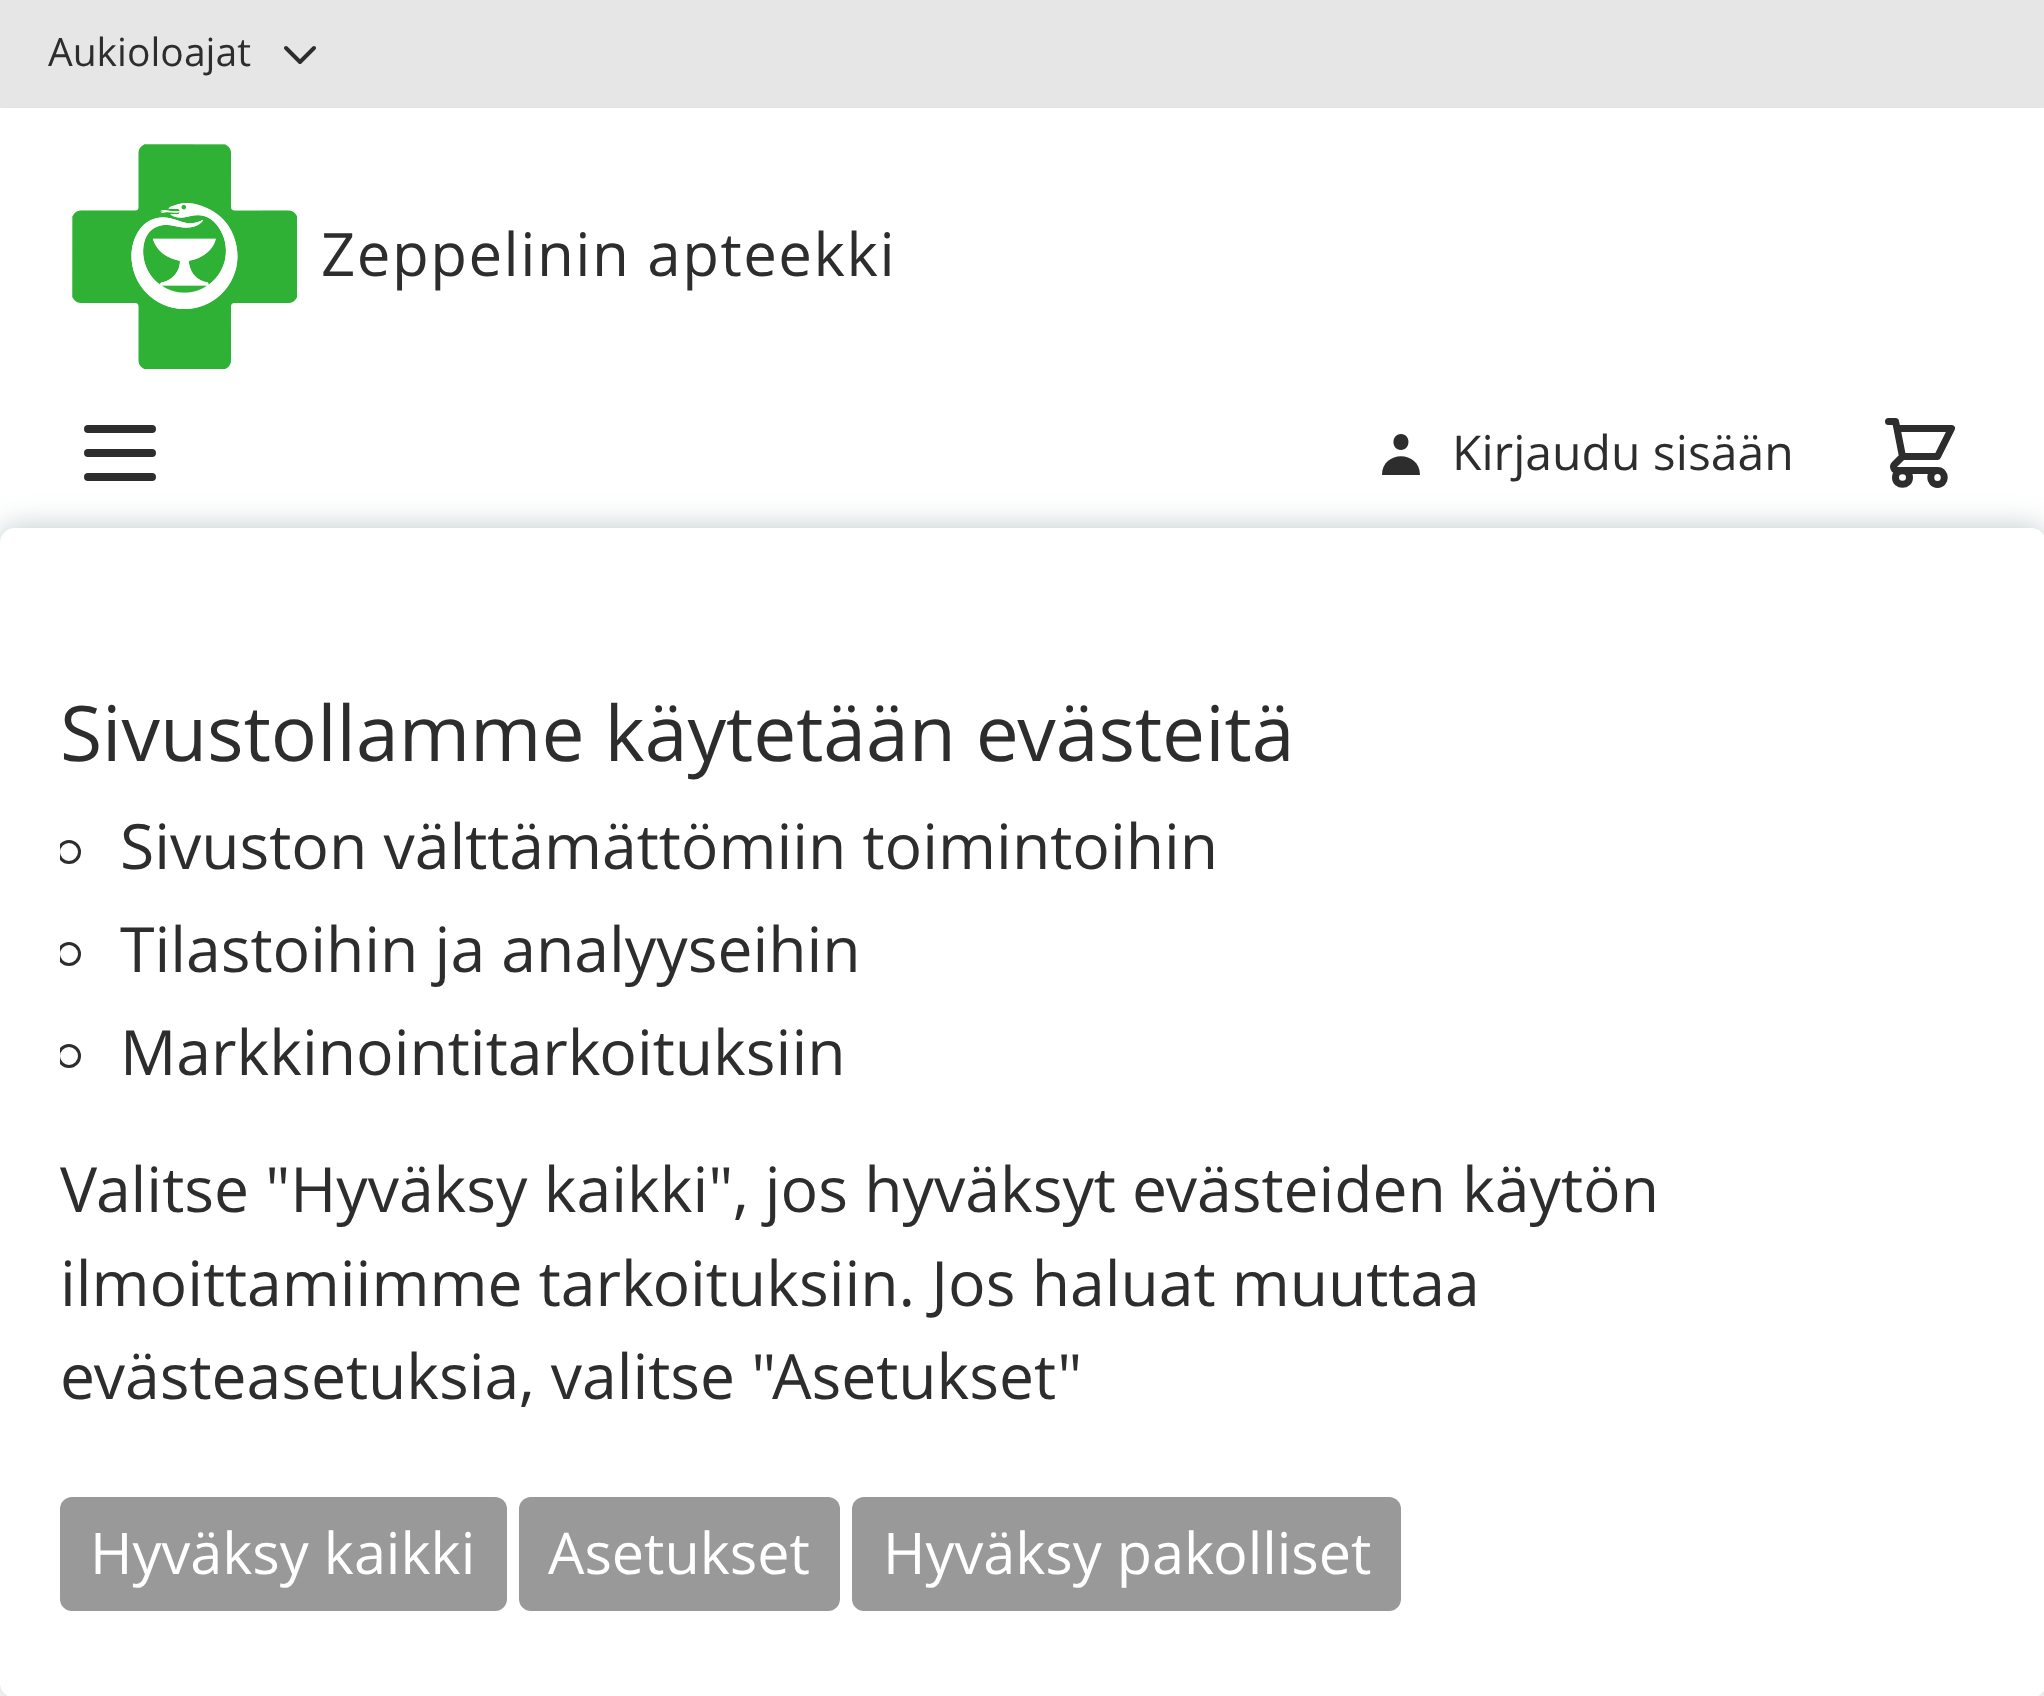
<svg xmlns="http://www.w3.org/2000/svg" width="2044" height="1696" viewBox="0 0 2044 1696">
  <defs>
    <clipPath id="clip1"><rect x="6" y="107" width="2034" height="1"/></clipPath>
    <clipPath id="clip2"><rect x="60" y="801" width="1926" height="696"/></clipPath>
  </defs>
  <rect width="100%" height="100%" fill="rgb(255,255,255)"/>
  <rect x="0" y="0" width="2044" height="108" fill="rgb(230,230,230)"/>
  <text x="48" y="66" font-family="Open Sans" font-size="39" fill="rgb(45,45,45)">Aukioloajat</text>
  <path d="M314 48L300 62L286 48" fill="none" stroke="rgb(45,45,45)" stroke-width="4" stroke-linecap="round" stroke-linejoin="round"/>
  <g clip-path="url(#clip1)">
    <rect x="0" y="111" width="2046" height="636" fill="rgba(0,0,0,0.1)" filter="blur(4.5px)"/>
  </g>
  <image x="72" y="144" width="225" height="225" href="pic1.png"/>
  <text x="321" y="276" font-family="Open Sans" font-size="60" letter-spacing="1.5" fill="rgb(45,45,45)">Zeppelinin apteekki</text>
  <path d="M88 429H152M88 453H152M88 477H152" fill="none" stroke="rgb(45,45,45)" stroke-width="8" stroke-linecap="round" stroke-linejoin="round"/>
  <path d="M1401 450C1411 450 1411 434 1401 434C1391 434 1391 450 1401 450ZM1382 475C1382 450 1420 450 1420 475Z" fill="rgb(45,45,45)" fill-rule="evenodd"/>
  <text x="1452" y="470" font-family="Open Sans" font-size="48" fill="rgb(45,45,45)">Kirjaudu sisään</text>
  <path d="M1888.5 421.5H1895.5L1897 428.5M1902.5 456.5H1937.5L1951.5 428.5H1897M1902.5 456.5L1897 428.5M1902.5 456.5L1894.5 464.5C1892.5 466.5 1894 470.5 1897 470.5H1937.5M1937.5 470.5C1928.5 470.5 1928.5 484.5 1937.5 484.5C1946.5 484.5 1946.5 470.5 1937.5 470.5ZM1909.5 477.5C1909.5 486.5 1895.5 486.5 1895.5 477.5C1895.5 468.5 1909.5 468.5 1909.5 477.5Z" fill="none" stroke="rgb(45,45,45)" stroke-width="7" stroke-linecap="round" stroke-linejoin="round"/>
  <rect x="0" y="528" width="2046" height="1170" rx="15" fill="rgba(84,116,120,0.4)" filter="blur(15px)"/>
  <rect x="0" y="528" width="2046" height="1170" rx="15" fill="rgb(255,255,255)"/>
  <text x="60" y="761" font-family="Open Sans" font-size="76.75" fill="rgb(45,45,45)">Sivustollamme käytetään evästeitä</text>
  <g clip-path="url(#clip2)">
    <circle cx="69" cy="852" r="10.5" fill="none" stroke="rgb(45,45,45)" stroke-width="3"/>
  </g>
  <text x="120" y="869" font-family="Open Sans" font-size="62.4" fill="rgb(45,45,45)">Sivuston välttämättömiin toimintoihin</text>
  <g clip-path="url(#clip2)">
    <circle cx="69" cy="954" r="10.5" fill="none" stroke="rgb(45,45,45)" stroke-width="3"/>
  </g>
  <text x="120" y="972" font-family="Open Sans" font-size="62.4" fill="rgb(45,45,45)">Tilastoihin ja analyyseihin</text>
  <g clip-path="url(#clip2)">
    <circle cx="69" cy="1056" r="10.5" fill="none" stroke="rgb(45,45,45)" stroke-width="3"/>
  </g>
  <g font-family="Open Sans" font-size="62.4" fill="rgb(45,45,45)">
    <text x="120" y="1075">Markkinointitarkoituksiin</text>
    <text>
      <tspan x="60" y="1212">Valitse "Hyväksy kaikki", jos hyväksyt evästeiden käytön</tspan>
      <tspan x="60" y="1306">ilmoittamiimme tarkoituksiin. Jos haluat muuttaa</tspan>
      <tspan x="60" y="1399">evästeasetuksia, valitse "Asetukset"</tspan>
    </text>
  </g>
  <rect x="60" y="1497" width="447" height="114" rx="12" fill="rgb(153,153,153)"/>
  <text x="90" y="1574" font-family="Open Sans" font-size="57.5" fill="rgb(255,255,255)">Hyväksy kaikki</text>
  <rect x="519" y="1497" width="321" height="114" rx="12" fill="rgb(153,153,153)"/>
  <text x="548" y="1574" font-family="Open Sans" font-size="57.5" fill="rgb(255,255,255)">Asetukset</text>
  <rect x="852" y="1497" width="549" height="114" rx="12" fill="rgb(153,153,153)"/>
  <text x="883" y="1574" font-family="Open Sans" font-size="57.5" fill="rgb(255,255,255)">Hyväksy pakolliset</text>
</svg>
